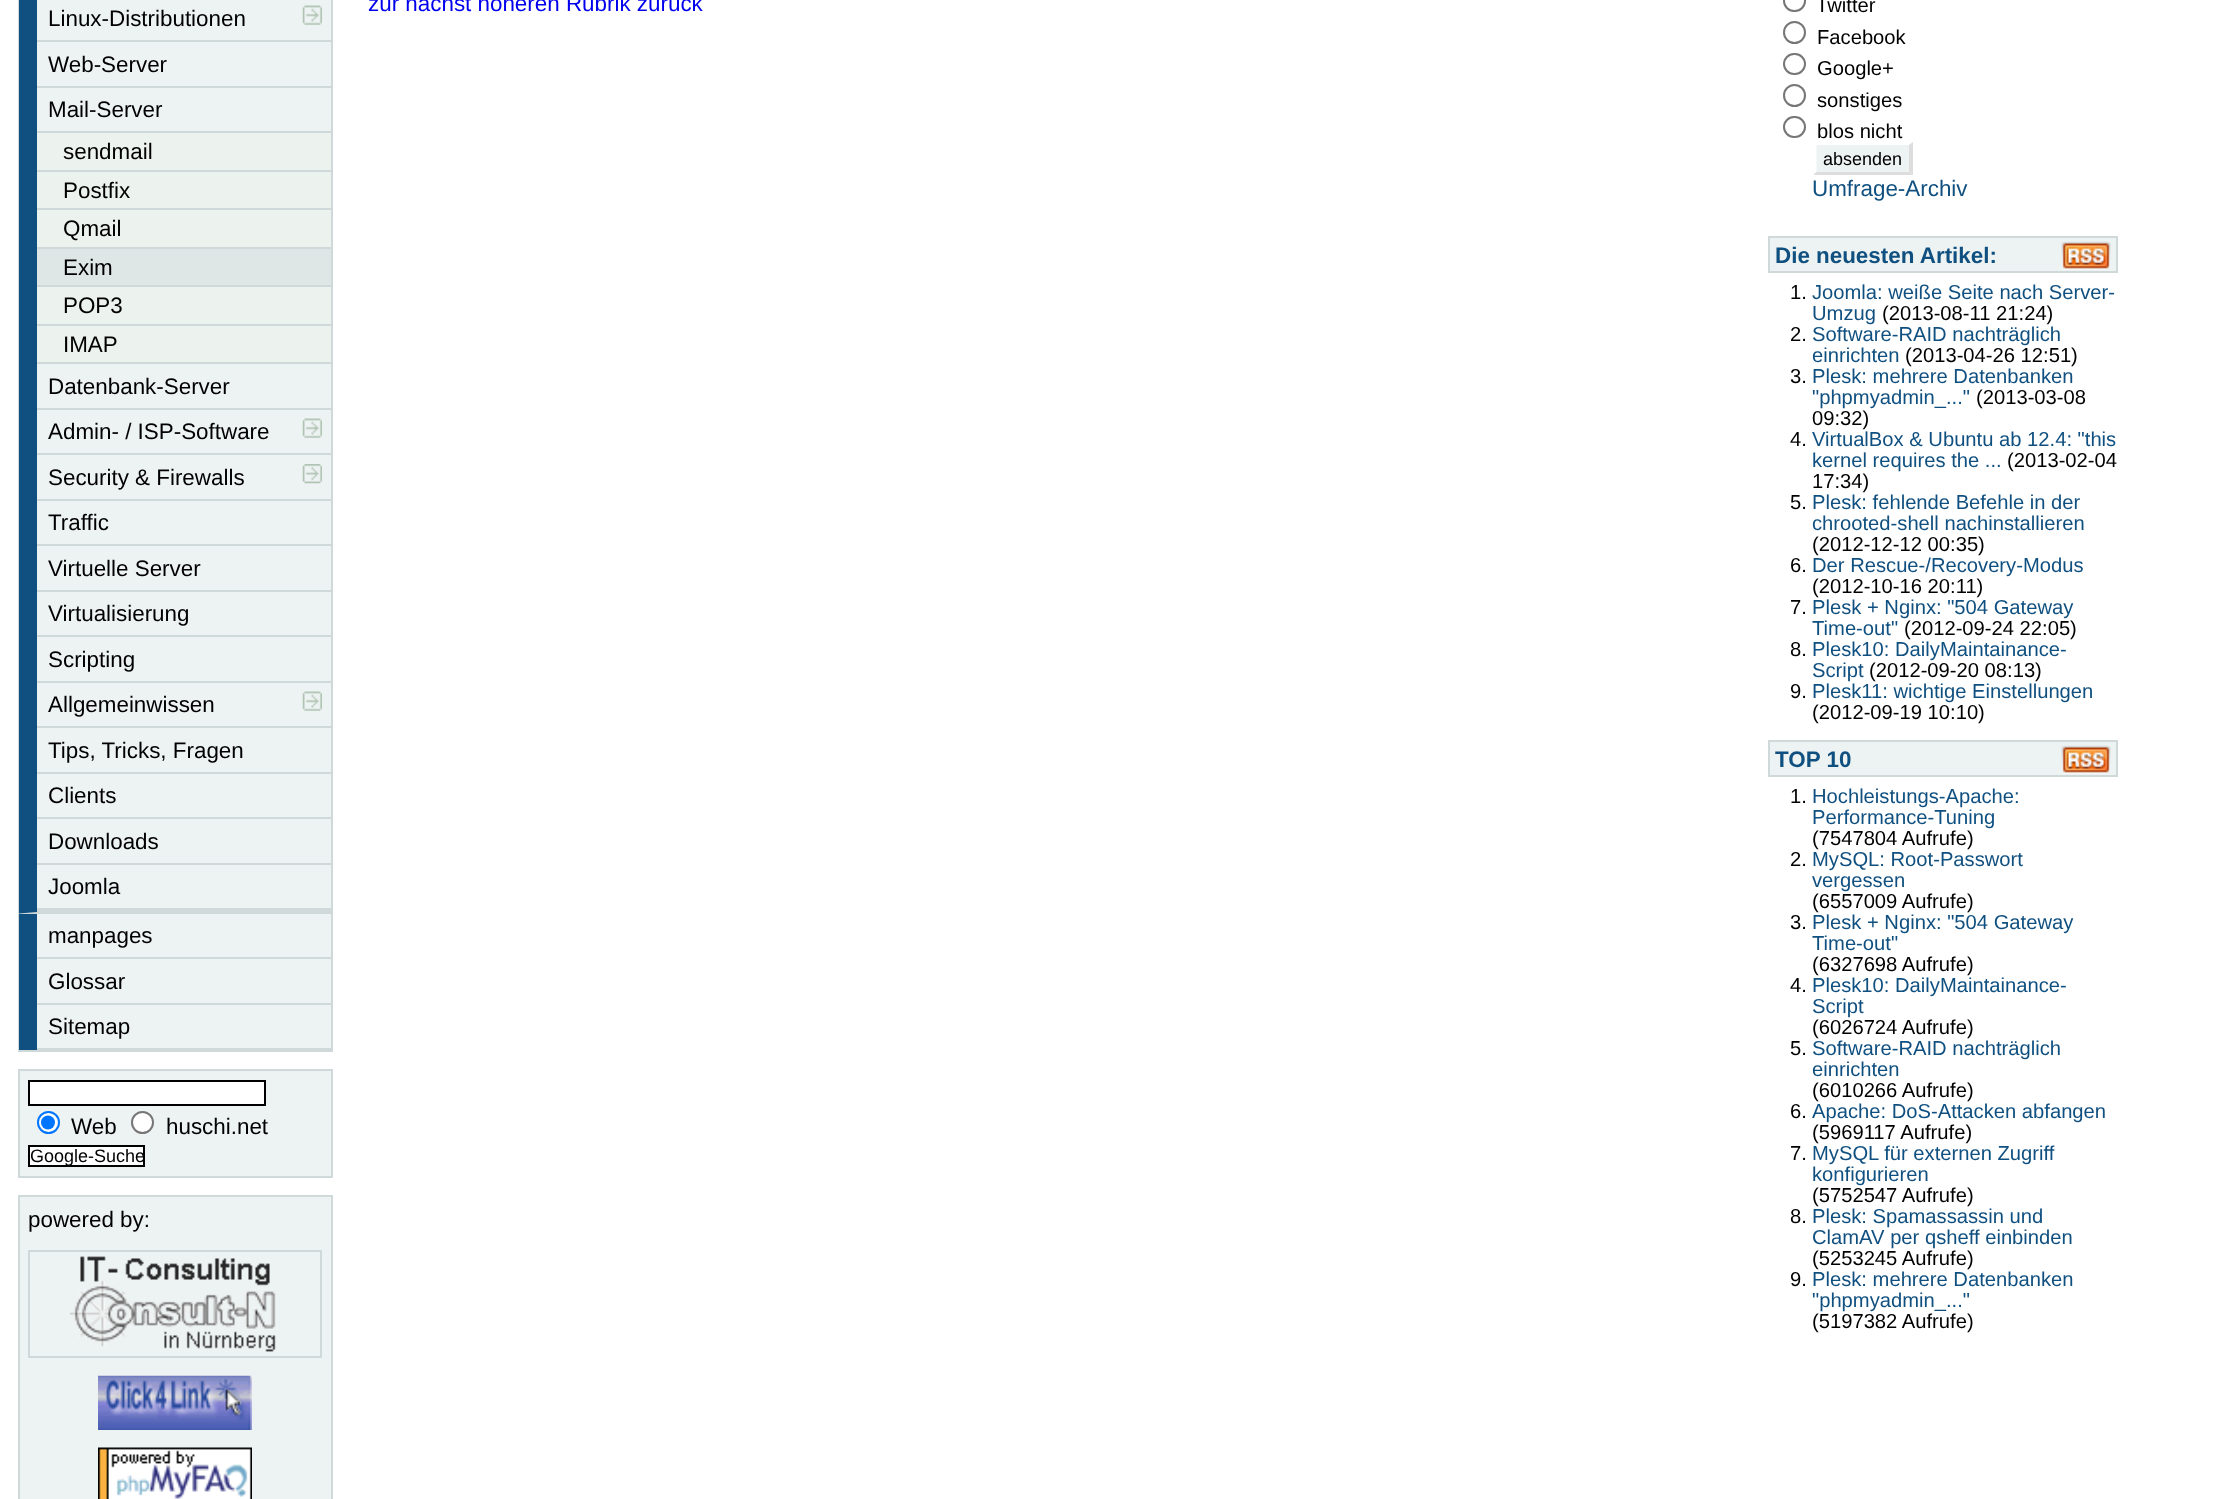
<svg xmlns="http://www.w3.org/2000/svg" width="2222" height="1499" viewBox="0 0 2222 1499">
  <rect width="100%" height="100%" fill="rgb(255,255,255)"/>
  <rect x="37" y="0" width="294" height="1048" fill="rgb(237,242,242)"/>
  <rect x="19" y="-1" width="313" height="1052" fill="none" stroke="rgb(208,217,217)" stroke-width="2"/>
  <rect x="19" y="0" width="18" height="910" fill="rgb(16,80,128)"/>
  <rect x="37" y="40" width="294" height="2" fill="rgb(208,217,217)"/>
  <text x="48" y="26" font-family="Liberation Sans" font-size="22.4" fill="rgb(0,0,0)">Linux-Distributionen</text>
  <image x="302" y="5" width="20" height="20" href="pic1.png"/>
  <rect x="37" y="86" width="294" height="2" fill="rgb(208,217,217)"/>
  <text x="48" y="72" font-family="Liberation Sans" font-size="22.4" fill="rgb(0,0,0)">Web-Server</text>
  <rect x="37" y="131" width="294" height="2" fill="rgb(208,217,217)"/>
  <text x="48" y="117" font-family="Liberation Sans" font-size="22.4" fill="rgb(0,0,0)">Mail-Server</text>
  <rect x="37" y="133" width="294" height="37" fill="rgb(236,242,237)"/>
  <rect x="37" y="170" width="294" height="2" fill="rgb(208,217,217)"/>
  <text x="63" y="159" font-family="Liberation Sans" font-size="22.4" fill="rgb(0,0,0)">sendmail</text>
  <rect x="37" y="172" width="294" height="36" fill="rgb(236,242,237)"/>
  <rect x="37" y="208" width="294" height="2" fill="rgb(208,217,217)"/>
  <text x="63" y="198" font-family="Liberation Sans" font-size="22.4" fill="rgb(0,0,0)">Postfix</text>
  <rect x="37" y="210" width="294" height="37" fill="rgb(236,242,237)"/>
  <rect x="37" y="247" width="294" height="2" fill="rgb(208,217,217)"/>
  <text x="63" y="236" font-family="Liberation Sans" font-size="22.4" fill="rgb(0,0,0)">Qmail</text>
  <rect x="37" y="249" width="294" height="36" fill="rgb(223,230,230)"/>
  <rect x="37" y="285" width="294" height="2" fill="rgb(208,217,217)"/>
  <text x="63" y="275" font-family="Liberation Sans" font-size="22.4" fill="rgb(0,0,0)">Exim</text>
  <rect x="37" y="287" width="294" height="37" fill="rgb(236,242,237)"/>
  <rect x="37" y="324" width="294" height="2" fill="rgb(208,217,217)"/>
  <text x="63" y="313" font-family="Liberation Sans" font-size="22.4" fill="rgb(0,0,0)">POP3</text>
  <rect x="37" y="326" width="294" height="36" fill="rgb(236,242,237)"/>
  <rect x="37" y="362" width="294" height="2" fill="rgb(208,217,217)"/>
  <text x="63" y="352" font-family="Liberation Sans" font-size="22.4" fill="rgb(0,0,0)">IMAP</text>
  <rect x="37" y="408" width="294" height="2" fill="rgb(208,217,217)"/>
  <text x="48" y="394" font-family="Liberation Sans" font-size="22.4" fill="rgb(0,0,0)">Datenbank-Server</text>
  <rect x="37" y="453" width="294" height="2" fill="rgb(208,217,217)"/>
  <text x="48" y="439" font-family="Liberation Sans" font-size="22.4" fill="rgb(0,0,0)">Admin- / ISP-Software</text>
  <image x="302" y="418" width="20" height="20" href="pic1.png"/>
  <rect x="37" y="499" width="294" height="2" fill="rgb(208,217,217)"/>
  <text x="48" y="485" font-family="Liberation Sans" font-size="22.4" fill="rgb(0,0,0)">Security &amp; Firewalls</text>
  <image x="302" y="464" width="20" height="20" href="pic2.png"/>
  <rect x="37" y="544" width="294" height="2" fill="rgb(208,217,217)"/>
  <text x="48" y="530" font-family="Liberation Sans" font-size="22.4" fill="rgb(0,0,0)">Traffic</text>
  <rect x="37" y="590" width="294" height="2" fill="rgb(208,217,217)"/>
  <text x="48" y="576" font-family="Liberation Sans" font-size="22.4" fill="rgb(0,0,0)">Virtuelle Server</text>
  <rect x="37" y="635" width="294" height="2" fill="rgb(208,217,217)"/>
  <text x="48" y="621" font-family="Liberation Sans" font-size="22.4" fill="rgb(0,0,0)">Virtualisierung</text>
  <rect x="37" y="681" width="294" height="2" fill="rgb(208,217,217)"/>
  <text x="48" y="667" font-family="Liberation Sans" font-size="22.4" fill="rgb(0,0,0)">Scripting</text>
  <rect x="37" y="726" width="294" height="2" fill="rgb(208,217,217)"/>
  <text x="48" y="712" font-family="Liberation Sans" font-size="22.4" fill="rgb(0,0,0)">Allgemeinwissen</text>
  <image x="302" y="691" width="20" height="20" href="pic1.png"/>
  <rect x="37" y="772" width="294" height="2" fill="rgb(208,217,217)"/>
  <text x="48" y="758" font-family="Liberation Sans" font-size="22.4" fill="rgb(0,0,0)">Tips, Tricks, Fragen</text>
  <rect x="37" y="817" width="294" height="2" fill="rgb(208,217,217)"/>
  <text x="48" y="803" font-family="Liberation Sans" font-size="22.4" fill="rgb(0,0,0)">Clients</text>
  <rect x="37" y="863" width="294" height="2" fill="rgb(208,217,217)"/>
  <text x="48" y="849" font-family="Liberation Sans" font-size="22.4" fill="rgb(0,0,0)">Downloads</text>
  <rect x="37" y="908" width="294" height="2" fill="rgb(208,217,217)"/>
  <text x="48" y="894" font-family="Liberation Sans" font-size="22.4" fill="rgb(0,0,0)">Joomla</text>
  <rect x="19" y="910" width="312" height="4" fill="rgb(208,217,217)"/>
  <path d="M19 913.5V910H37V912Z" fill="rgb(16,80,128)"/>
  <rect x="19" y="914" width="18" height="136" fill="rgb(16,80,128)"/>
  <rect x="37" y="957" width="294" height="2" fill="rgb(208,217,217)"/>
  <text x="48" y="943" font-family="Liberation Sans" font-size="22.4" fill="rgb(0,0,0)">manpages</text>
  <rect x="37" y="1003" width="294" height="2" fill="rgb(208,217,217)"/>
  <text x="48" y="989" font-family="Liberation Sans" font-size="22.4" fill="rgb(0,0,0)">Glossar</text>
  <rect x="37" y="1048" width="294" height="2" fill="rgb(208,217,217)"/>
  <text x="48" y="1034" font-family="Liberation Sans" font-size="22.4" fill="rgb(0,0,0)">Sitemap</text>
  <rect x="19" y="1070" width="313" height="107" fill="rgb(237,242,242)" stroke="rgb(208,217,217)" stroke-width="2"/>
  <rect x="29" y="1081" width="236" height="24" fill="rgb(255,255,255)" stroke="rgb(0,0,0)" stroke-width="2"/>
  <circle cx="48.5" cy="1122.5" r="10.5" fill="rgb(255,255,255)" stroke="rgb(0,117,255)" stroke-width="2"/>
  <circle cx="48" cy="1122.5" r="7" fill="rgb(0,117,255)"/>
  <text x="71" y="1134" font-family="Liberation Sans" font-size="22.4" fill="rgb(0,0,0)">Web</text>
  <circle cx="142.5" cy="1122.5" r="10.5" fill="rgb(255,255,255)" stroke="rgb(118,118,118)" stroke-width="2"/>
  <text x="166" y="1134" font-family="Liberation Sans" font-size="22.4" fill="rgb(0,0,0)">huschi.net</text>
  <rect x="29" y="1146" width="115" height="20" fill="rgb(255,255,255)" stroke="rgb(0,0,0)" stroke-width="2"/>
  <text x="30" y="1162" font-family="Liberation Sans" font-size="18" fill="rgb(0,0,0)">Google-Suche</text>
  <rect x="19" y="1196" width="313" height="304" fill="rgb(237,242,242)" stroke="rgb(208,217,217)" stroke-width="2"/>
  <text x="28" y="1227" font-family="Liberation Sans" font-size="22.4" fill="rgb(0,0,0)">powered by:</text>
  <rect x="29" y="1251" width="292" height="106" fill="none" stroke="rgb(208,217,217)" stroke-width="2"/>
  <image x="70" y="1256" width="206" height="96" href="pic3.png"/>
  <image x="98" y="1375" width="154" height="55" href="pic4.png"/>
  <image x="98" y="1447" width="154" height="52" href="pic5.png"/>
  <text x="368" y="11" font-family="Liberation Sans" font-size="22.4" fill="rgb(0,0,238)">zur nächst höheren Rubrik zurück</text>
  <rect x="1784" y="-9" width="21" height="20" rx="10" fill="none" stroke="rgb(118,118,118)" stroke-width="2"/>
  <text x="1816" y="12" font-family="Liberation Sans" font-size="20.2" fill="rgb(0,0,0)">Twitter</text>
  <circle cx="1794.5" cy="32.5" r="10.5" fill="none" stroke="rgb(118,118,118)" stroke-width="2"/>
  <text x="1817" y="44" font-family="Liberation Sans" font-size="20.2" fill="rgb(0,0,0)">Facebook</text>
  <rect x="1784" y="54" width="21" height="20" rx="10" fill="none" stroke="rgb(118,118,118)" stroke-width="2"/>
  <text x="1817" y="75" font-family="Liberation Sans" font-size="20.2" fill="rgb(0,0,0)">Google+</text>
  <circle cx="1794.5" cy="95.5" r="10.5" fill="none" stroke="rgb(118,118,118)" stroke-width="2"/>
  <text x="1817" y="107" font-family="Liberation Sans" font-size="20.2" fill="rgb(0,0,0)">sonstiges</text>
  <rect x="1784" y="117" width="21" height="20" rx="10" fill="none" stroke="rgb(118,118,118)" stroke-width="2"/>
  <text x="1817" y="138" font-family="Liberation Sans" font-size="20.2" fill="rgb(0,0,0)">blos nicht</text>
  <rect x="1813" y="142" width="100" height="33" fill="rgb(237,242,242)"/>
  <path d="M1813 142H1913L1909 145H1816Z" fill="rgb(255,255,255)"/>
  <path d="M1913 142V175L1909 171.5V145Z" fill="rgb(221,221,221)"/>
  <path d="M1913 175H1813L1816 172H1909Z" fill="rgb(221,221,221)"/>
  <path d="M1813 175V142L1816.5 145V171.5Z" fill="rgb(255,255,255)"/>
  <text x="1823" y="165" font-family="Liberation Sans" font-size="18" fill="rgb(0,0,0)">absenden</text>
  <text x="1812" y="196" font-family="Liberation Sans" font-size="22.4" fill="rgb(16,80,128)">Umfrage-Archiv</text>
  <rect x="1769" y="237" width="348" height="35" fill="rgb(237,242,242)" stroke="rgb(208,217,217)" stroke-width="2"/>
  <text x="1775" y="263" font-family="Liberation Sans" font-size="22.4" font-weight="bold" fill="rgb(16,80,128)">Die neuesten Artikel:</text>
  <image x="2061" y="241" width="50" height="29" href="pic6.png"/>
  <text x="1790" y="299" font-family="Liberation Sans" font-size="20.2" fill="rgb(0,0,0)">1.</text>
  <g font-family="Liberation Sans" font-size="20.2" fill="rgb(16,80,128)">
    <text>
      <tspan x="1812" y="299">Joomla: weiße Seite nach Server-</tspan>
      <tspan x="1812" y="320">Umzug</tspan>
    </text>
  </g>
  <g font-family="Liberation Sans" font-size="20.2" fill="rgb(0,0,0)">
    <text x="1882" y="320">(2013-08-11 21:24)</text>
    <text x="1790" y="341">2.</text>
  </g>
  <g font-family="Liberation Sans" font-size="20.2" fill="rgb(16,80,128)">
    <text>
      <tspan x="1812" y="341">Software-RAID nachträglich</tspan>
      <tspan x="1812" y="362">einrichten</tspan>
    </text>
  </g>
  <g font-family="Liberation Sans" font-size="20.2" fill="rgb(0,0,0)">
    <text x="1905" y="362">(2013-04-26 12:51)</text>
    <text x="1790" y="383">3.</text>
  </g>
  <g font-family="Liberation Sans" font-size="20.2" fill="rgb(16,80,128)">
    <text>
      <tspan x="1812" y="383">Plesk: mehrere Datenbanken</tspan>
      <tspan x="1812" y="404">"phpmyadmin_..."</tspan>
    </text>
  </g>
  <g font-family="Liberation Sans" font-size="20.2" fill="rgb(0,0,0)">
    <text x="1976" y="404">(2013-03-08</text>
    <text x="1812" y="425">09:32)</text>
    <text x="1790" y="446">4.</text>
  </g>
  <g font-family="Liberation Sans" font-size="20.2" fill="rgb(16,80,128)">
    <text>
      <tspan x="1812" y="446">VirtualBox &amp; Ubuntu ab 12.4: "this</tspan>
      <tspan x="1812" y="467">kernel requires the ...</tspan>
    </text>
  </g>
  <g font-family="Liberation Sans" font-size="20.2" fill="rgb(0,0,0)">
    <text x="2007" y="467">(2013-02-04</text>
    <text x="1812" y="488">17:34)</text>
    <text x="1790" y="509">5.</text>
  </g>
  <g font-family="Liberation Sans" font-size="20.2" fill="rgb(16,80,128)">
    <text>
      <tspan x="1812" y="509">Plesk: fehlende Befehle in der</tspan>
      <tspan x="1812" y="530">chrooted-shell nachinstallieren</tspan>
    </text>
  </g>
  <g font-family="Liberation Sans" font-size="20.2" fill="rgb(0,0,0)">
    <text x="1812" y="551">(2012-12-12 00:35)</text>
    <text x="1790" y="572">6.</text>
  </g>
  <text x="1812" y="572" font-family="Liberation Sans" font-size="20.2" fill="rgb(16,80,128)">Der Rescue-/Recovery-Modus</text>
  <g font-family="Liberation Sans" font-size="20.2" fill="rgb(0,0,0)">
    <text x="1812" y="593">(2012-10-16 20:11)</text>
    <text x="1790" y="614">7.</text>
  </g>
  <g font-family="Liberation Sans" font-size="20.2" fill="rgb(16,80,128)">
    <text>
      <tspan x="1812" y="614">Plesk + Nginx: "504 Gateway</tspan>
      <tspan x="1812" y="635">Time-out"</tspan>
    </text>
  </g>
  <g font-family="Liberation Sans" font-size="20.2" fill="rgb(0,0,0)">
    <text x="1904" y="635">(2012-09-24 22:05)</text>
    <text x="1790" y="656">8.</text>
  </g>
  <g font-family="Liberation Sans" font-size="20.2" fill="rgb(16,80,128)">
    <text>
      <tspan x="1812" y="656">Plesk10: DailyMaintainance-</tspan>
      <tspan x="1812" y="677">Script</tspan>
    </text>
  </g>
  <g font-family="Liberation Sans" font-size="20.2" fill="rgb(0,0,0)">
    <text x="1869" y="677">(2012-09-20 08:13)</text>
    <text x="1790" y="698">9.</text>
  </g>
  <text x="1812" y="698" font-family="Liberation Sans" font-size="20.2" fill="rgb(16,80,128)">Plesk11: wichtige Einstellungen</text>
  <text x="1812" y="719" font-family="Liberation Sans" font-size="20.2" fill="rgb(0,0,0)">(2012-09-19 10:10)</text>
  <rect x="1769" y="741" width="348" height="35" fill="rgb(237,242,242)" stroke="rgb(208,217,217)" stroke-width="2"/>
  <text x="1775" y="767" font-family="Liberation Sans" font-size="22.4" font-weight="bold" fill="rgb(16,80,128)">TOP 10</text>
  <image x="2061" y="745" width="50" height="29" href="pic6.png"/>
  <text x="1790" y="803" font-family="Liberation Sans" font-size="20.2" fill="rgb(0,0,0)">1.</text>
  <g font-family="Liberation Sans" font-size="20.2" fill="rgb(16,80,128)">
    <text>
      <tspan x="1812" y="803">Hochleistungs-Apache:</tspan>
      <tspan x="1812" y="824">Performance-Tuning</tspan>
    </text>
  </g>
  <g font-family="Liberation Sans" font-size="20.2" fill="rgb(0,0,0)">
    <text x="1812" y="845">(7547804 Aufrufe)</text>
    <text x="1790" y="866">2.</text>
  </g>
  <g font-family="Liberation Sans" font-size="20.2" fill="rgb(16,80,128)">
    <text>
      <tspan x="1812" y="866">MySQL: Root-Passwort</tspan>
      <tspan x="1812" y="887">vergessen</tspan>
    </text>
  </g>
  <g font-family="Liberation Sans" font-size="20.2" fill="rgb(0,0,0)">
    <text x="1812" y="908">(6557009 Aufrufe)</text>
    <text x="1790" y="929">3.</text>
  </g>
  <g font-family="Liberation Sans" font-size="20.2" fill="rgb(16,80,128)">
    <text>
      <tspan x="1812" y="929">Plesk + Nginx: "504 Gateway</tspan>
      <tspan x="1812" y="950">Time-out"</tspan>
    </text>
  </g>
  <g font-family="Liberation Sans" font-size="20.2" fill="rgb(0,0,0)">
    <text x="1812" y="971">(6327698 Aufrufe)</text>
    <text x="1790" y="992">4.</text>
  </g>
  <g font-family="Liberation Sans" font-size="20.2" fill="rgb(16,80,128)">
    <text>
      <tspan x="1812" y="992">Plesk10: DailyMaintainance-</tspan>
      <tspan x="1812" y="1013">Script</tspan>
    </text>
  </g>
  <g font-family="Liberation Sans" font-size="20.2" fill="rgb(0,0,0)">
    <text x="1812" y="1034">(6026724 Aufrufe)</text>
    <text x="1790" y="1055">5.</text>
  </g>
  <g font-family="Liberation Sans" font-size="20.2" fill="rgb(16,80,128)">
    <text>
      <tspan x="1812" y="1055">Software-RAID nachträglich</tspan>
      <tspan x="1812" y="1076">einrichten</tspan>
    </text>
  </g>
  <g font-family="Liberation Sans" font-size="20.2" fill="rgb(0,0,0)">
    <text x="1812" y="1097">(6010266 Aufrufe)</text>
    <text x="1790" y="1118">6.</text>
  </g>
  <text x="1812" y="1118" font-family="Liberation Sans" font-size="20.2" fill="rgb(16,80,128)">Apache: DoS-Attacken abfangen</text>
  <g font-family="Liberation Sans" font-size="20.2" fill="rgb(0,0,0)">
    <text x="1812" y="1139">(5969117 Aufrufe)</text>
    <text x="1790" y="1160">7.</text>
  </g>
  <g font-family="Liberation Sans" font-size="20.2" fill="rgb(16,80,128)">
    <text>
      <tspan x="1812" y="1160">MySQL für externen Zugriff</tspan>
      <tspan x="1812" y="1181">konfigurieren</tspan>
    </text>
  </g>
  <g font-family="Liberation Sans" font-size="20.2" fill="rgb(0,0,0)">
    <text x="1812" y="1202">(5752547 Aufrufe)</text>
    <text x="1790" y="1223">8.</text>
  </g>
  <g font-family="Liberation Sans" font-size="20.2" fill="rgb(16,80,128)">
    <text>
      <tspan x="1812" y="1223">Plesk: Spamassassin und</tspan>
      <tspan x="1812" y="1244">ClamAV per qsheff einbinden</tspan>
    </text>
  </g>
  <g font-family="Liberation Sans" font-size="20.2" fill="rgb(0,0,0)">
    <text x="1812" y="1265">(5253245 Aufrufe)</text>
    <text x="1790" y="1286">9.</text>
  </g>
  <g font-family="Liberation Sans" font-size="20.2" fill="rgb(16,80,128)">
    <text>
      <tspan x="1812" y="1286">Plesk: mehrere Datenbanken</tspan>
      <tspan x="1812" y="1307">"phpmyadmin_..."</tspan>
    </text>
  </g>
  <text x="1812" y="1328" font-family="Liberation Sans" font-size="20.2" fill="rgb(0,0,0)">(5197382 Aufrufe)</text>
</svg>
